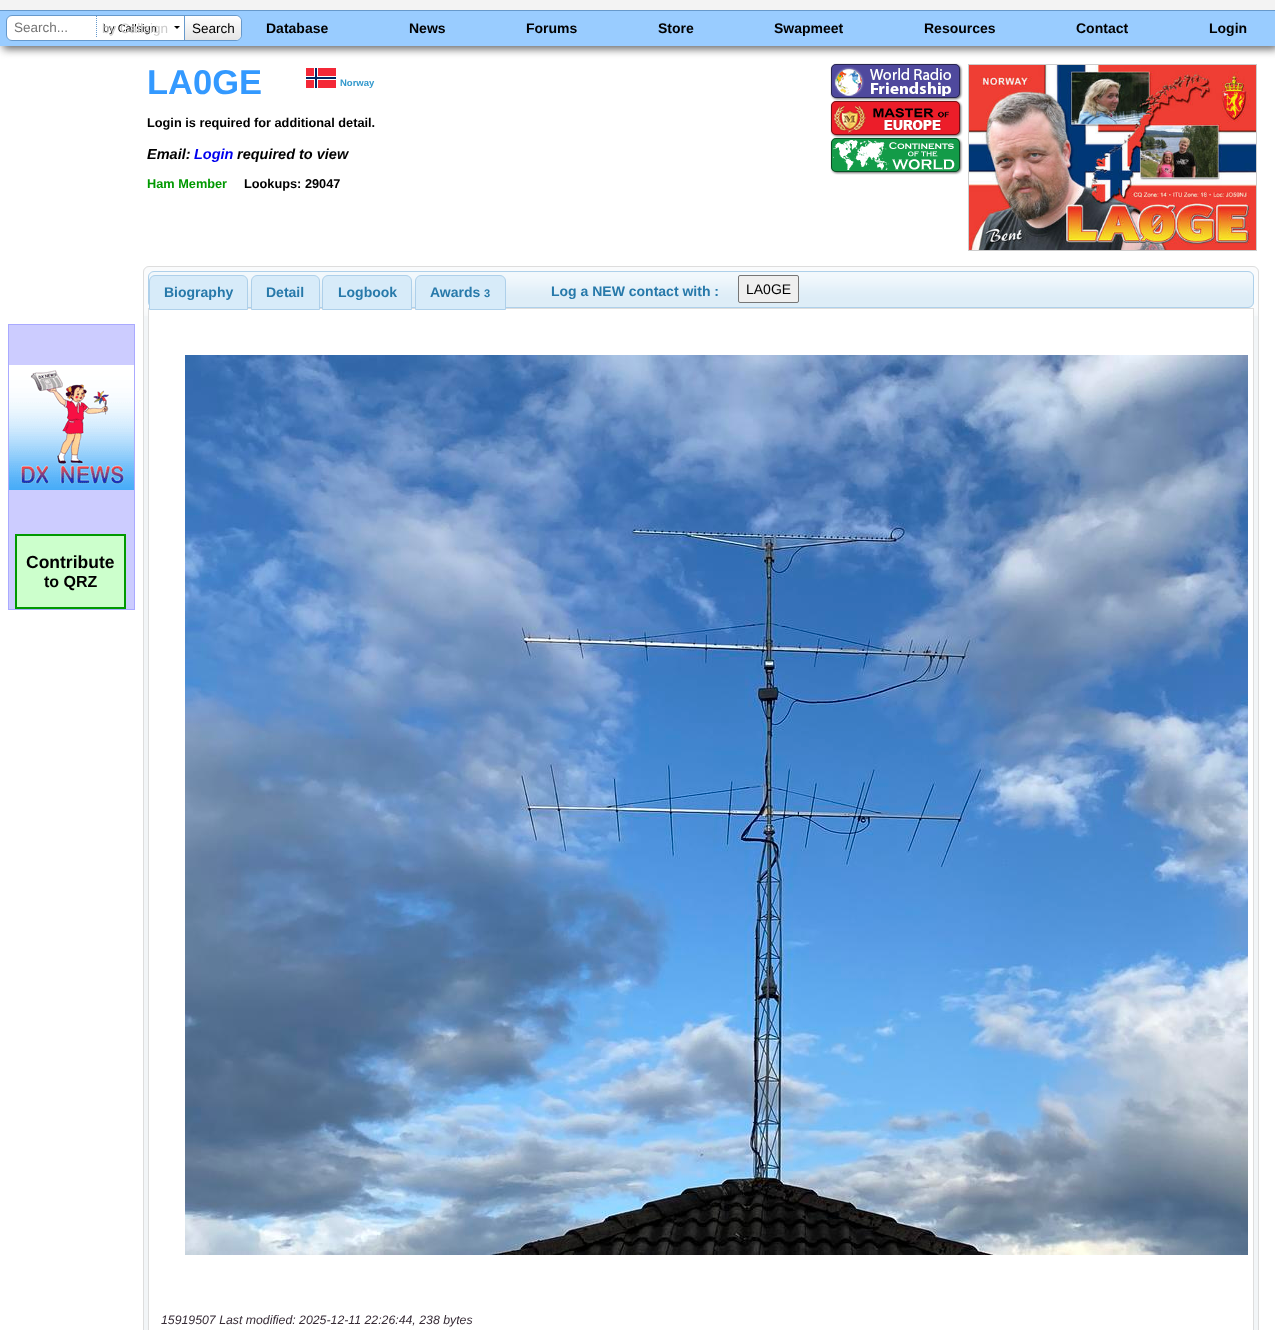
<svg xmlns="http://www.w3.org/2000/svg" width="1275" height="1330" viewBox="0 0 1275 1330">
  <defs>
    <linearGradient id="g1" gradientUnits="userSpaceOnUse" x1="213" y1="16" x2="213" y2="40"><stop offset="0" stop-color="rgb(255,255,255)"/><stop offset="1" stop-color="rgb(229,229,229)"/></linearGradient>
  </defs>
  <rect width="100%" height="100%" fill="rgb(255,255,255)"/>
  <rect x="3" y="-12" width="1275" height="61" fill="rgb(102,102,102)" filter="blur(4px)"/>
  <rect x="0" y="0" width="1275" height="10" fill="rgb(243,243,243)"/>
  <rect x="0" y="11" width="1275" height="35" fill="rgb(153,204,255)"/>
  <rect x="0" y="10" width="1275" height="1" fill="rgb(102,153,204)"/>
  <rect x="6.5" y="15.5" width="235" height="25" rx="5.5" fill="rgb(255,255,255)" stroke="rgb(102,153,204)"/>
  <path d="M96.5 16V38" fill="none" stroke="rgb(102,153,204)" stroke-dasharray="1 1"/>
  <text x="14" y="32" font-family="Liberation Sans" font-size="13.5" fill="rgb(117,117,117)">Search...</text>
  <text x="103" y="32" font-family="Liberation Sans" font-size="11" fill="rgb(0,0,0)">by Callsign</text>
  <text x="102" y="33" font-family="Liberation Sans" font-size="13.5" fill="rgb(202,202,202)">by Callsign</text>
  <rect x="184" y="16" width="1" height="24" fill="rgb(102,153,204)"/>
  <path d="M174 26H180L177 29Z" fill="rgb(0,0,0)"/>
  <path d="M185 16H235C238.5 16 241 18.5 241 22V34C241 37.5 238.5 40 235 40H185Z" fill="url(#g1)"/>
  <text x="192" y="33" font-family="Liberation Sans" font-size="13.5" fill="rgb(0,0,0)">Search</text>
  <g font-family="Liberation Sans" font-size="14" font-weight="bold" fill="rgb(0,0,0)">
    <text x="266" y="33">Database</text>
    <text x="409" y="33">News</text>
    <text x="526" y="33">Forums</text>
    <text x="658" y="33">Store</text>
    <text x="774" y="33">Swapmeet</text>
    <text x="924" y="33">Resources</text>
    <text x="1076" y="33">Contact</text>
    <text x="1209" y="33">Login</text>
  </g>
  <rect x="8.5" y="324.5" width="126" height="285" fill="rgb(204,204,255)" stroke="rgb(170,170,255)"/>
  <image x="9" y="365" width="125" height="125" href="pic1.png"/>
  <rect x="16" y="535" width="109" height="73" fill="rgb(204,255,204)" stroke="rgb(0,153,0)" stroke-width="2"/>
  <text x="26" y="568" font-family="Liberation Sans" font-size="17.5" font-weight="bold" fill="rgb(0,0,0)">Contribute</text>
  <text x="44" y="587" font-family="Liberation Sans" font-size="16" font-weight="bold" fill="rgb(0,0,0)">to QRZ</text>
  <text x="147" y="94" font-family="Liberation Sans" font-size="34.5" font-weight="bold" fill="rgb(51,153,255)">LA0GE</text>
  <image x="306" y="68" width="30" height="20" href="pic2.png"/>
  <text x="340" y="86" font-family="Liberation Sans" font-size="9.5" font-weight="bold" fill="rgb(51,153,204)">Norway</text>
  <text x="147" y="127" font-family="Liberation Sans" font-size="12.75" font-weight="bold" fill="rgb(0,0,0)">Login is required for additional detail.</text>
  <text x="147" y="159" font-family="Liberation Sans" font-size="14.5" font-weight="bold" font-style="italic" fill="rgb(0,0,0)">Email:</text>
  <text x="194" y="159" font-family="Liberation Sans" font-size="14.5" font-weight="bold" font-style="italic" fill="rgb(0,0,238)">Login</text>
  <text x="237" y="159" font-family="Liberation Sans" font-size="14.5" font-weight="bold" font-style="italic" fill="rgb(0,0,0)">required to view</text>
  <text x="147" y="188" font-family="Liberation Sans" font-size="12.75" font-weight="bold" fill="rgb(0,153,0)">Ham Member</text>
  <text x="244" y="188" font-family="Liberation Sans" font-size="12.75" font-weight="bold" fill="rgb(0,0,0)">Lookups: 29047</text>
  <rect x="832" y="65" width="129" height="34" rx="5" fill="rgb(102,102,102)" filter="blur(1px)"/>
  <rect x="831" y="64" width="129" height="34" rx="5" fill="rgb(79,73,157)"/>
  <rect x="831.5" y="64.5" width="128" height="33" rx="4.5" fill="none" stroke="rgba(0,0,0,0.5)"/>
  <image x="833" y="66" width="125" height="30" href="pic3.png"/>
  <rect x="832" y="102" width="129" height="34" rx="5" fill="rgb(102,102,102)" filter="blur(1px)"/>
  <rect x="831" y="101" width="129" height="34" rx="5" fill="rgb(236,29,41)"/>
  <rect x="831.5" y="101.5" width="128" height="33" rx="4.5" fill="none" stroke="rgba(0,0,0,0.5)"/>
  <image x="833" y="105" width="116" height="28" href="pic4.png"/>
  <rect x="832" y="139" width="129" height="34" rx="5" fill="rgb(102,102,102)" filter="blur(1px)"/>
  <rect x="831" y="138" width="129" height="34" rx="5" fill="rgb(19,155,72)"/>
  <rect x="831.5" y="138.5" width="128" height="33" rx="4.5" fill="none" stroke="rgba(0,0,0,0.5)"/>
  <image x="833" y="140" width="125" height="30" href="pic5.png"/>
  <rect x="968.5" y="64.5" width="288" height="186" fill="none" stroke="rgb(204,204,204)"/>
  <image x="969" y="65" width="287" height="185" href="pic6.png"/>
  <rect x="143" y="266" width="1116" height="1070" rx="6" fill="rgb(242,245,247)"/>
  <image x="143" y="267" width="1116" height="49" href="pic7.png"/>
  <rect x="143.5" y="266.5" width="1115" height="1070" rx="5.5" fill="none" stroke="rgb(221,221,221)"/>
  <image x="148" y="271" width="1106" height="37" href="pic8.png"/>
  <rect x="148.5" y="271.5" width="1105" height="36" rx="5.5" fill="none" stroke="rgb(174,208,234)"/>
  <rect x="148.5" y="308.5" width="1105" height="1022" fill="rgb(255,255,255)" stroke="rgb(221,221,221)"/>
  <path d="M155 275.5H242C245 275.5 247.5 278 247.5 281V309.5H149.5V281C149.5 278 152 275.5 155 275.5Z" fill="rgb(215,235,249)" stroke="rgb(174,208,234)"/>
  <text x="164" y="297" font-family="Liberation Sans" font-size="14" font-weight="bold" fill="rgb(39,121,170)">Biography</text>
  <path d="M257 275.5H314C317 275.5 319.5 278 319.5 281V309.5H251.5V281C251.5 278 254 275.5 257 275.5Z" fill="rgb(215,235,249)" stroke="rgb(174,208,234)"/>
  <text x="266" y="297" font-family="Liberation Sans" font-size="14" font-weight="bold" fill="rgb(39,121,170)">Detail</text>
  <path d="M328 275.5H406C409 275.5 411.5 278 411.5 281V309.5H322.5V281C322.5 278 325 275.5 328 275.5Z" fill="rgb(215,235,249)" stroke="rgb(174,208,234)"/>
  <text x="338" y="297" font-family="Liberation Sans" font-size="14" font-weight="bold" fill="rgb(39,121,170)">Logbook</text>
  <path d="M421 275.5H500C503 275.5 505.5 278 505.5 281V309.5H415.5V281C415.5 278 418 275.5 421 275.5Z" fill="rgb(215,235,249)" stroke="rgb(174,208,234)"/>
  <text x="430" y="297" font-family="Liberation Sans" font-size="14" font-weight="bold" fill="rgb(39,121,170)">Awards</text>
  <text x="484" y="297" font-family="Liberation Sans" font-size="11" font-weight="bold" fill="rgb(39,121,170)">3</text>
  <text x="551" y="296" font-family="Liberation Sans" font-size="14" font-weight="bold" fill="rgb(39,121,170)">Log a NEW contact with :</text>
  <rect x="738.5" y="275.5" width="60" height="27" rx="1.5" fill="rgb(239,239,239)" stroke="rgb(118,118,118)"/>
  <text x="746" y="294" font-family="Liberation Sans" font-size="14" fill="rgb(0,0,0)">LA0GE</text>
  <image x="185" y="355" width="1063" height="900" href="pic9.png"/>
  <text x="161" y="1324" font-family="Liberation Sans" font-size="12.3" font-style="italic" fill="rgb(54,43,54)">15919507 Last modified: 2025-12-11 22:26:44, 238 bytes</text>
</svg>
